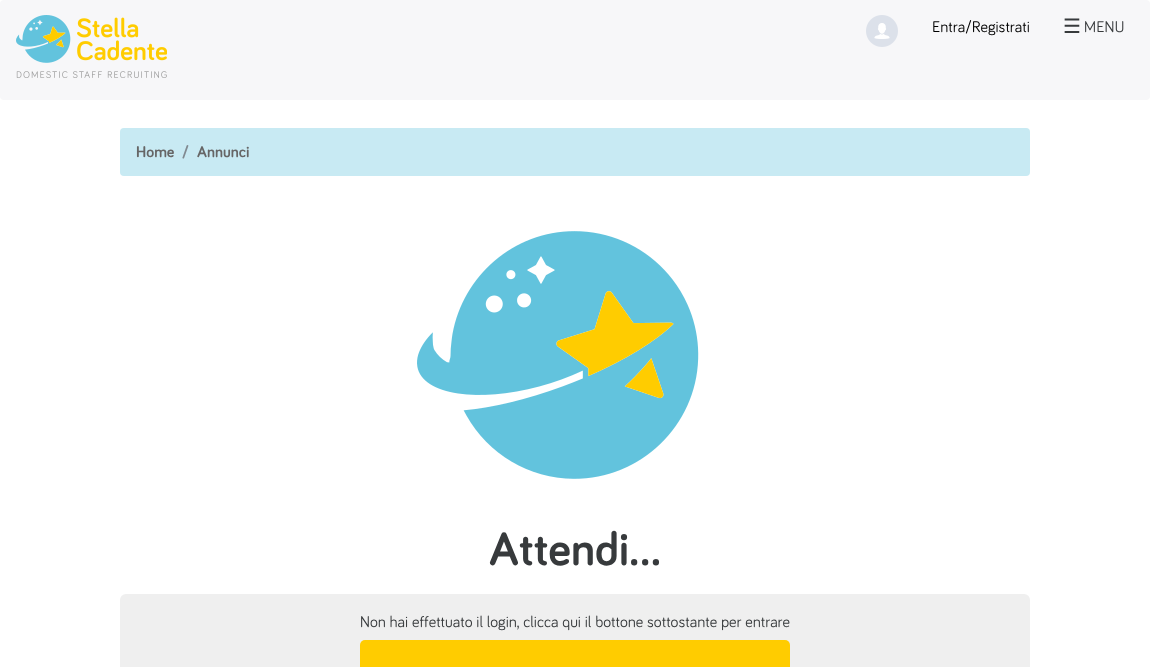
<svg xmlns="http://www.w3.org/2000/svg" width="1150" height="667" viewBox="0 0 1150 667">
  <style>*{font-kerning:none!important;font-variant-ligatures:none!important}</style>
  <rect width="100%" height="100%" fill="rgb(255,255,255)"/>
  <rect x="0" y="0" width="1150" height="100" rx="4" fill="rgb(247,247,249)"/>
  <image x="16" y="15" width="151" height="63" href="pic1.png"/>
  <image x="866" y="15" width="32" height="32" href="pic2.png"/>
  <text x="932" y="32" font-family="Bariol" font-size="16" fill="rgb(0,0,0)">Entra/Registrati</text>
  <text x="1063" y="33" font-family="DejaVu Sans" font-size="20" fill="rgb(55,58,60)">☰</text>
  <text x="1084" y="32" font-family="Bariol" font-size="16" fill="rgb(55,58,60)">MENU</text>
  <rect x="120" y="128" width="910" height="48" rx="4" fill="rgb(200,234,243)"/>
  <text x="136" y="157" font-family="Bariol" font-size="16" font-weight="bold" fill="rgb(102,102,102)">Home</text>
  <text x="182" y="157" font-family="Bariol" font-size="16" font-weight="bold" fill="rgb(129,138,145)">/</text>
  <text x="197" y="157" font-family="Bariol" font-size="16" font-weight="bold" fill="rgb(102,102,102)">Annunci</text>
  <image x="417" y="231" width="282" height="248" href="pic3.png"/>
  <text x="489" y="565" font-family="Bariol" font-size="48" font-weight="bold" fill="rgb(55,58,60)">Attendi...</text>
  <rect x="120" y="594" width="910" height="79" rx="6" fill="rgb(239,239,239)"/>
  <text x="360" y="627" font-family="Bariol" font-size="16" fill="rgb(55,58,60)">Non hai effettuato il login, clicca qui il bottone sottostante per entrare</text>
  <rect x="360" y="640" width="430" height="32" rx="5" fill="rgb(255,204,0)"/>
</svg>
